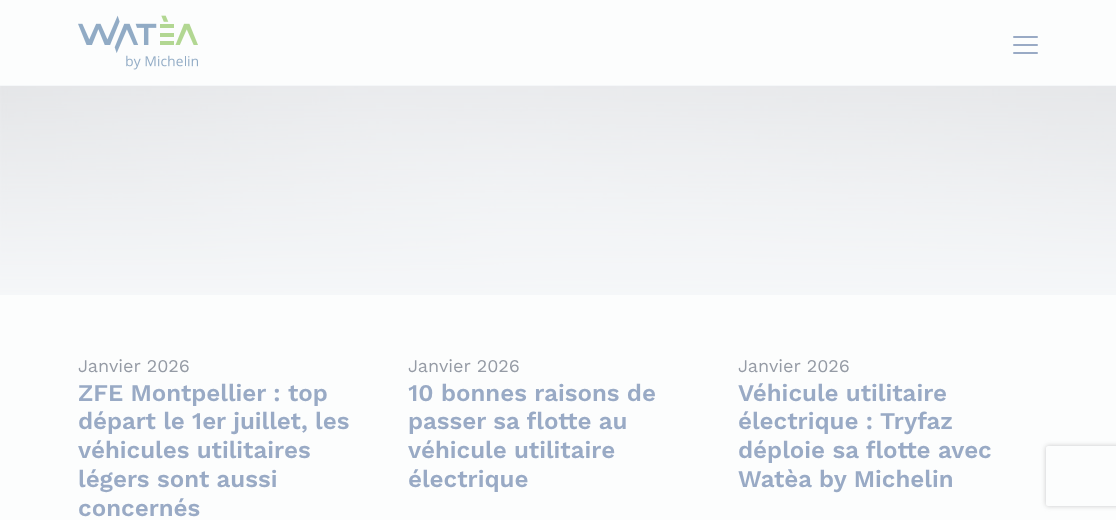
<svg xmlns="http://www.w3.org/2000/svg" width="1116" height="520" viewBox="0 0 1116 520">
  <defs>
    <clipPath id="clip1"><path d="M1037 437H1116V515H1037ZM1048 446H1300C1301 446 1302 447 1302 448V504C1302 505 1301 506 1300 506H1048C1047 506 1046 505 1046 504V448C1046 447 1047 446 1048 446Z" clip-rule="evenodd"/></clipPath>
  </defs>
  <rect width="100%" height="100%" fill="rgb(252,253,253)"/>
  <rect x="0" y="85" width="1116" height="1" fill="rgb(245,247,249)"/>
  <image x="78" y="15" width="120" height="55" href="pic1.png"/>
  <rect x="1013" y="36" width="25" height="2" rx="1" fill="rgb(153,170,197)"/>
  <rect x="1013" y="44" width="25" height="2" rx="1" fill="rgb(153,170,197)"/>
  <rect x="1013" y="52" width="25" height="2" rx="1" fill="rgb(153,170,197)"/>
  <image x="0" y="86" width="1116" height="209" href="pic2.png"/>
  <text x="78" y="372" font-family="Work Sans" font-size="18" fill="rgb(149,155,165)">Janvier 2026</text>
  <g font-family="Work Sans" font-size="24" font-weight="600" fill="rgb(153,170,197)">
    <text>
      <tspan x="78" y="401">ZFE Montpellier : top</tspan>
      <tspan x="78" y="429">départ le 1er juillet, les</tspan>
      <tspan x="78" y="458">véhicules utilitaires</tspan>
      <tspan x="78" y="487">légers sont aussi</tspan>
      <tspan x="78" y="516">concernés</tspan>
    </text>
  </g>
  <text x="408" y="372" font-family="Work Sans" font-size="18" fill="rgb(149,155,165)">Janvier 2026</text>
  <g font-family="Work Sans" font-size="24" font-weight="600" fill="rgb(153,170,197)">
    <text>
      <tspan x="408" y="401">10 bonnes raisons de</tspan>
      <tspan x="408" y="429">passer sa flotte au</tspan>
      <tspan x="408" y="458">véhicule utilitaire</tspan>
      <tspan x="408" y="487">électrique</tspan>
    </text>
  </g>
  <text x="738" y="372" font-family="Work Sans" font-size="18" fill="rgb(149,155,165)">Janvier 2026</text>
  <g font-family="Work Sans" font-size="24" font-weight="600" fill="rgb(153,170,197)">
    <text>
      <tspan x="738" y="401">Véhicule utilitaire</tspan>
      <tspan x="738" y="429">électrique : Tryfaz</tspan>
      <tspan x="738" y="458">déploie sa flotte avec</tspan>
      <tspan x="738" y="487">Watèa by Michelin</tspan>
    </text>
  </g>
  <g clip-path="url(#clip1)">
    <rect x="1046" y="446" width="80" height="60" rx="2" fill="rgb(199,199,200)" filter="blur(2.5px)"/>
  </g>
</svg>
